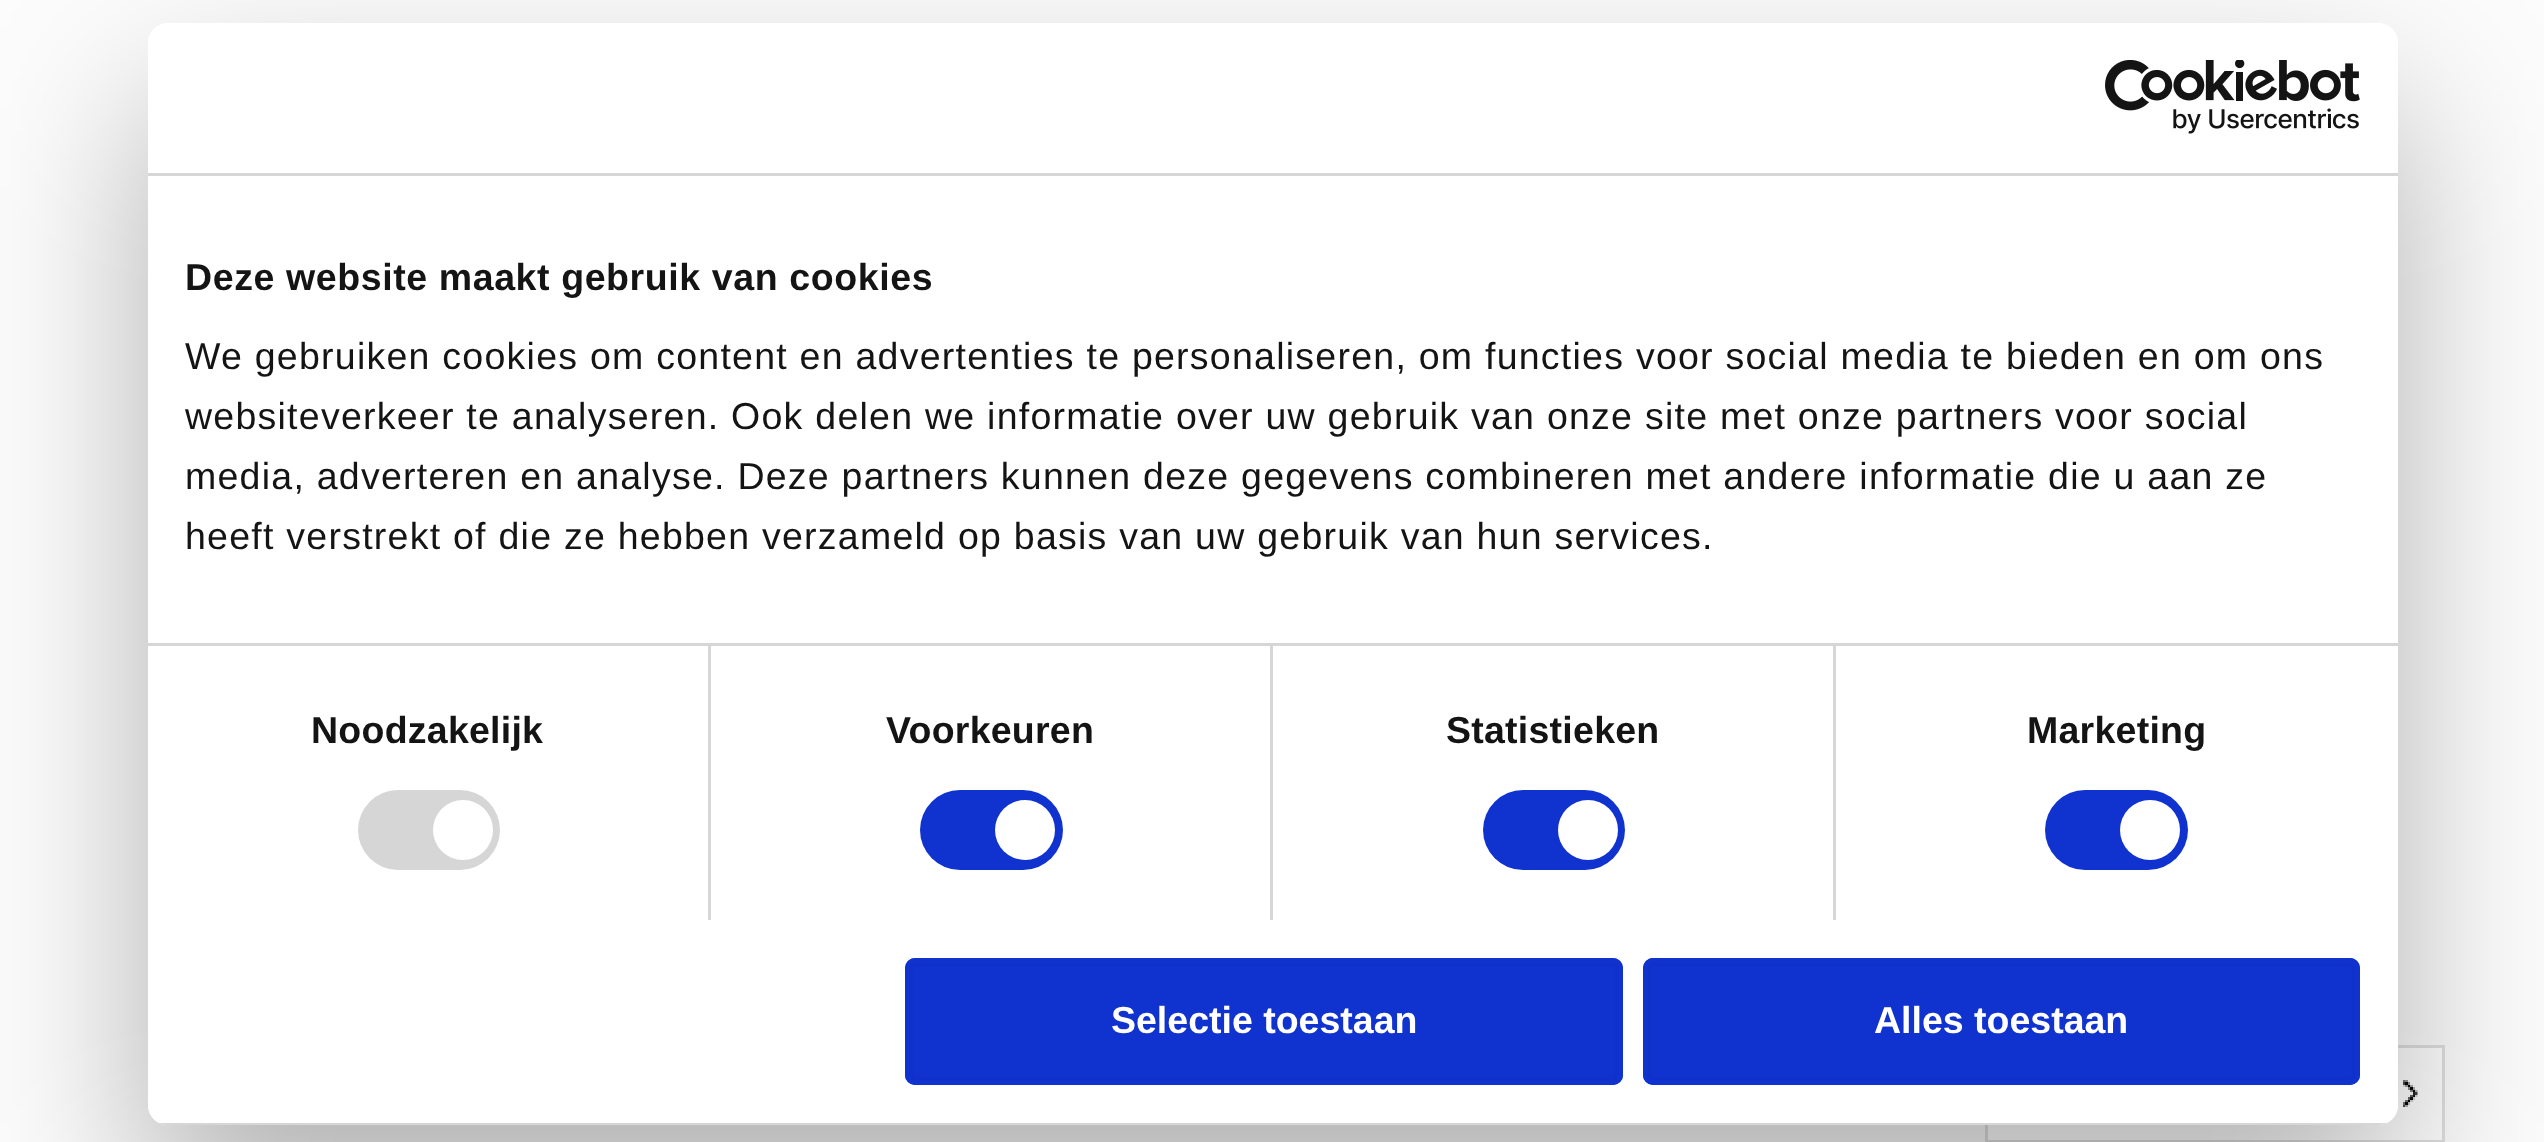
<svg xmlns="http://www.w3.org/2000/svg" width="2544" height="1142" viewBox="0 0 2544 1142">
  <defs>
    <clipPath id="clip1"><path d="M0 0H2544V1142H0ZM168 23H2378C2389 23 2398 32 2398 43V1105C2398 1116 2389 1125 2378 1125H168C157 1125 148 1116 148 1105V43C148 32 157 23 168 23Z" clip-rule="evenodd"/></clipPath>
    <clipPath id="clip2"><rect x="148" y="23" width="2250" height="1102" rx="20"/></clipPath>
  </defs>
  <rect width="100%" height="100%" fill="rgb(252,252,252)"/>
  <rect x="1986.5" y="1046.5" width="457" height="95" fill="rgb(255,255,255)" stroke="rgb(224,224,224)" stroke-width="3"/>
  <image x="2403" y="1080" width="15" height="27" href="pic2.png"/>
  <g clip-path="url(#clip1)">
    <rect x="148" y="103" width="2250" height="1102" rx="20" fill="rgba(0,0,0,0.3)" filter="blur(85px)"/>
  </g>
  <rect x="148" y="23" width="2250" height="1102" rx="20" fill="rgb(255,255,255)"/>
  <rect x="148" y="173" width="2250" height="3" fill="rgb(214,214,214)"/>
  <image x="2105" y="60" width="255" height="74" href="pic1.png"/>
  <rect x="708" y="645" width="3" height="275" fill="rgb(214,214,214)"/>
  <rect x="1270" y="645" width="3" height="275" fill="rgb(214,214,214)"/>
  <rect x="1833" y="645" width="3" height="275" fill="rgb(214,214,214)"/>
  <rect x="148" y="643" width="2250" height="3" fill="rgb(214,214,214)"/>
  <text x="185" y="290" font-family="Liberation Sans" font-size="37.5" font-weight="bold" letter-spacing="0.6" fill="rgb(20,20,20)">Deze website maakt gebruik van cookies</text>
  <g font-family="Liberation Sans" font-size="37.5" letter-spacing="1.25" fill="rgb(20,20,20)">
    <text>
      <tspan x="185" y="369">We gebruiken cookies om content en advertenties te personaliseren, om functies voor social media te bieden en om ons</tspan>
      <tspan x="185" y="429">websiteverkeer te analyseren. Ook delen we informatie over uw gebruik van onze site met onze partners voor social</tspan>
      <tspan x="185" y="489">media, adverteren en analyse. Deze partners kunnen deze gegevens combineren met andere informatie die u aan ze</tspan>
      <tspan x="185" y="549">heeft verstrekt of die ze hebben verzameld op basis van uw gebruik van hun services.</tspan>
    </text>
  </g>
  <text x="311" y="743" font-family="Liberation Sans" font-size="37.5" font-weight="bold" letter-spacing="0.25" fill="rgb(20,20,20)">Noodzakelijk</text>
  <rect x="358" y="790" width="142" height="80" rx="40" fill="rgb(214,214,214)"/>
  <circle cx="463" cy="830" r="30" fill="rgb(255,255,255)"/>
  <text x="886" y="743" font-family="Liberation Sans" font-size="37.5" font-weight="bold" letter-spacing="0.25" fill="rgb(20,20,20)">Voorkeuren</text>
  <rect x="920" y="790" width="143" height="80" rx="40" fill="rgb(16,50,207)"/>
  <circle cx="1025" cy="830" r="30" fill="rgb(255,255,255)"/>
  <text x="1446" y="743" font-family="Liberation Sans" font-size="37.5" font-weight="bold" letter-spacing="0.25" fill="rgb(20,20,20)">Statistieken</text>
  <rect x="1483" y="790" width="142" height="80" rx="40" fill="rgb(16,50,207)"/>
  <circle cx="1588" cy="830" r="30" fill="rgb(255,255,255)"/>
  <text x="2027" y="743" font-family="Liberation Sans" font-size="37.5" font-weight="bold" letter-spacing="0.25" fill="rgb(20,20,20)">Marketing</text>
  <rect x="2045" y="790" width="143" height="80" rx="40" fill="rgb(16,50,207)"/>
  <circle cx="2150" cy="830" r="30" fill="rgb(255,255,255)"/>
  <g clip-path="url(#clip2)">
    <rect x="159" y="1123" width="2228" height="2" fill="rgb(214,214,214)"/>
  </g>
  <rect x="905" y="958" width="718" height="127" rx="10" fill="rgb(16,50,207)"/>
  <rect x="911.5" y="964.5" width="705" height="114" rx="3.5" fill="none" stroke="rgb(16,49,201)" stroke-width="3"/>
  <rect x="907.5" y="960.5" width="713" height="122" rx="7.5" fill="none" stroke="rgb(16,50,207)" stroke-width="5"/>
  <text x="1111" y="1033" font-family="Liberation Sans" font-size="37.5" font-weight="bold" fill="rgb(255,255,255)">Selectie toestaan</text>
  <rect x="1643" y="958" width="717" height="127" rx="10" fill="rgb(16,50,207)"/>
  <rect x="1649.5" y="964.5" width="704" height="114" rx="3.5" fill="none" stroke="rgb(16,49,201)" stroke-width="3"/>
  <rect x="1645.5" y="960.5" width="712" height="122" rx="7.5" fill="none" stroke="rgb(16,50,207)" stroke-width="5"/>
  <text x="1874" y="1033" font-family="Liberation Sans" font-size="37.5" font-weight="bold" fill="rgb(255,255,255)">Alles toestaan</text>
</svg>
